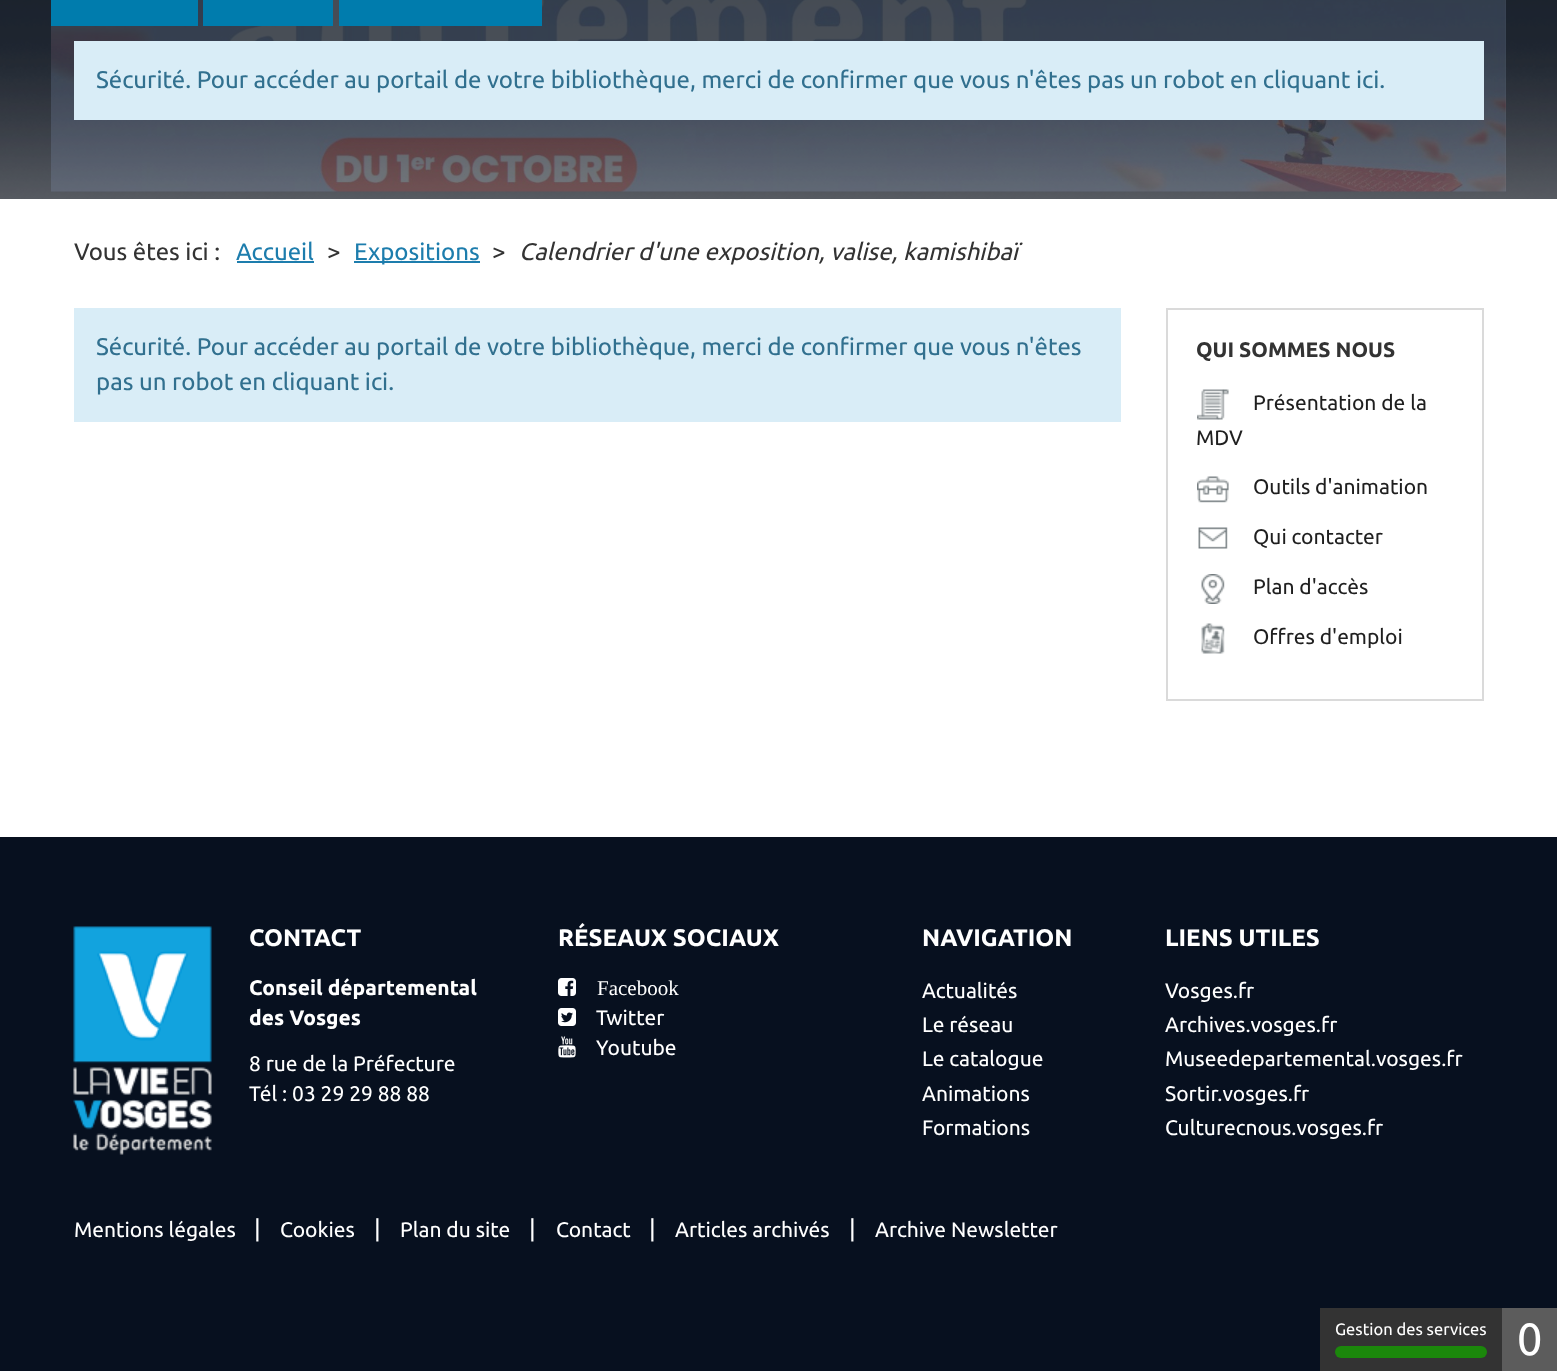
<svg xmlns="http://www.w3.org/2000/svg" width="1557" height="1371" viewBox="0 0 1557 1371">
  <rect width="100%" height="100%" fill="rgb(255,255,255)"/>
  <image x="0" y="0" width="1557" height="199" href="pic1.png"/>
  <image x="51" y="0" width="1455" height="192" href="pic2.png"/>
  <rect x="51" y="0" width="147" height="26" fill="rgb(0,124,173)"/>
  <rect x="203" y="0" width="130" height="26" fill="rgb(0,124,173)"/>
  <rect x="339" y="0" width="203" height="26" fill="rgb(0,124,173)"/>
  <rect x="74" y="41" width="1410" height="79" fill="rgb(217,237,247)"/>
  <text x="96" y="88" font-family="Ubuntu" font-size="24" fill="rgb(49,112,143)">Sécurité. Pour accéder au portail de votre bibliothèque, merci de confirmer que vous n'êtes pas un robot en cliquant ici.</text>
  <text x="74" y="260" font-family="Ubuntu" font-size="24" fill="rgb(51,51,51)">Vous êtes ici :</text>
  <text x="236" y="260" font-family="Ubuntu" font-size="24" fill="rgb(29,125,173)">Accueil</text>
  <rect x="237" y="261" width="77" height="2" fill="rgb(29,125,173)"/>
  <text x="327" y="260" font-family="Ubuntu" font-size="24" fill="rgb(51,51,51)">&gt;</text>
  <rect x="354" y="261" width="126" height="2" fill="rgb(29,125,173)"/>
  <text x="354" y="260" font-family="Ubuntu" font-size="24" fill="rgb(29,125,173)">Expositions</text>
  <text x="492" y="260" font-family="Ubuntu" font-size="24" fill="rgb(51,51,51)">&gt;</text>
  <text x="519" y="260" font-family="Ubuntu" font-size="24" font-style="italic" fill="rgb(51,51,51)">Calendrier d'une exposition, valise, kamishibaï</text>
  <rect x="74" y="308" width="1047" height="114" fill="rgb(217,237,247)"/>
  <g font-family="Ubuntu" font-size="24" fill="rgb(49,112,143)">
    <text>
      <tspan x="96" y="355">Sécurité. Pour accéder au portail de votre bibliothèque, merci de confirmer que vous n'êtes</tspan>
      <tspan x="96" y="390">pas un robot en cliquant ici.</tspan>
    </text>
  </g>
  <rect x="1167" y="309" width="316" height="391" fill="none" stroke="rgb(218,218,218)" stroke-width="2"/>
  <text x="1196" y="357" font-family="Ubuntu" font-size="21" font-weight="bold" fill="rgb(51,51,51)">QUI SOMMES NOUS</text>
  <image x="1197" y="389" width="32" height="31" href="pic3.png"/>
  <g font-family="Ubuntu" font-size="21" fill="rgb(31,31,31)">
    <text x="1253" y="410">Présentation de la</text>
    <text x="1196" y="445">MDV</text>
  </g>
  <image x="1197" y="476" width="32" height="27" href="pic4.png"/>
  <text x="1253" y="494" font-family="Ubuntu" font-size="21" fill="rgb(31,31,31)">Outils d'animation</text>
  <image x="1198" y="527" width="30" height="22" href="pic5.png"/>
  <text x="1253" y="544" font-family="Ubuntu" font-size="21" fill="rgb(31,31,31)">Qui contacter</text>
  <image x="1201" y="574" width="24" height="30" href="pic6.png"/>
  <text x="1253" y="594" font-family="Ubuntu" font-size="21" fill="rgb(31,31,31)">Plan d'accès</text>
  <image x="1201" y="623" width="24" height="31" href="pic7.png"/>
  <text x="1253" y="644" font-family="Ubuntu" font-size="21" fill="rgb(31,31,31)">Offres d'emploi</text>
  <rect x="0" y="837" width="1557" height="534" fill="rgb(7,16,31)"/>
  <image x="73" y="926" width="139" height="229" href="pic8.png"/>
  <text x="249" y="946" font-family="Ubuntu" font-size="24" font-weight="bold" fill="rgb(255,255,255)">CONTACT</text>
  <g font-family="Ubuntu" font-size="21" font-weight="bold" fill="rgb(255,255,255)">
    <text>
      <tspan x="249" y="995">Conseil départemental</tspan>
      <tspan x="249" y="1025">des Vosges</tspan>
    </text>
  </g>
  <g font-family="Ubuntu" font-size="21" fill="rgb(255,255,255)">
    <text>
      <tspan x="249" y="1071">8 rue de la Préfecture</tspan>
      <tspan x="249" y="1101">Tél : 03 29 29 88 88</tspan>
    </text>
  </g>
  <text x="558" y="946" font-family="Ubuntu" font-size="24" font-weight="bold" fill="rgb(255,255,255)">RÉSEAUX SOCIAUX</text>
  <image x="558" y="978" width="18" height="18" href="pic9.png"/>
  <text x="597" y="995" font-family="Liberation Serif" font-size="21" fill="rgb(255,255,255)">Facebook</text>
  <image x="558" y="1008" width="18" height="18" href="pic10.png"/>
  <text x="596" y="1025" font-family="Ubuntu" font-size="21" fill="rgb(255,255,255)">Twitter</text>
  <image x="558" y="1036" width="18" height="22" href="pic11.png"/>
  <text x="596" y="1055" font-family="Ubuntu" font-size="21" fill="rgb(255,255,255)">Youtube</text>
  <text x="922" y="946" font-family="Ubuntu" font-size="24" font-weight="bold" fill="rgb(255,255,255)">NAVIGATION</text>
  <g font-family="Ubuntu" font-size="21" fill="rgb(255,255,255)">
    <text>
      <tspan x="922" y="998">Actualités</tspan>
      <tspan x="922" y="1032">Le réseau</tspan>
      <tspan x="922" y="1066">Le catalogue</tspan>
      <tspan x="922" y="1101">Animations</tspan>
      <tspan x="922" y="1135">Formations</tspan>
    </text>
  </g>
  <text x="1165" y="946" font-family="Ubuntu" font-size="24" font-weight="bold" fill="rgb(255,255,255)">LIENS UTILES</text>
  <g font-family="Ubuntu" font-size="21" fill="rgb(255,255,255)">
    <text>
      <tspan x="1165" y="998">Vosges.fr</tspan>
      <tspan x="1165" y="1032">Archives.vosges.fr</tspan>
      <tspan x="1165" y="1066">Museedepartemental.vosges.fr</tspan>
      <tspan x="1165" y="1101">Sortir.vosges.fr</tspan>
      <tspan x="1165" y="1135">Culturecnous.vosges.fr</tspan>
    </text>
    <text x="74" y="1237">Mentions légales</text>
  </g>
  <text x="254" y="1237" font-family="Ubuntu" font-size="24" fill="rgb(255,255,255)">|</text>
  <text x="280" y="1237" font-family="Ubuntu" font-size="21" fill="rgb(255,255,255)">Cookies</text>
  <text x="374" y="1237" font-family="Ubuntu" font-size="24" fill="rgb(255,255,255)">|</text>
  <text x="400" y="1237" font-family="Ubuntu" font-size="21" fill="rgb(255,255,255)">Plan du site</text>
  <text x="529" y="1237" font-family="Ubuntu" font-size="24" fill="rgb(255,255,255)">|</text>
  <text x="556" y="1237" font-family="Ubuntu" font-size="21" fill="rgb(255,255,255)">Contact</text>
  <text x="649" y="1237" font-family="Ubuntu" font-size="24" fill="rgb(255,255,255)">|</text>
  <text x="675" y="1237" font-family="Ubuntu" font-size="21" fill="rgb(255,255,255)">Articles archivés</text>
  <text x="849" y="1237" font-family="Ubuntu" font-size="24" fill="rgb(255,255,255)">|</text>
  <text x="875" y="1237" font-family="Ubuntu" font-size="21" fill="rgb(255,255,255)">Archive Newsletter</text>
  <rect x="1320" y="1308" width="182" height="63" fill="rgb(51,51,51)"/>
  <text x="1335" y="1335" font-family="Ubuntu" font-size="16.5" fill="rgb(255,255,255)">Gestion des services</text>
  <rect x="1335" y="1346" width="152" height="12" rx="6" fill="rgb(27,135,11)"/>
  <rect x="1502" y="1308" width="55" height="63" fill="rgb(92,92,92)"/>
  <text x="1517" y="1355" font-family="Ubuntu" font-size="45" fill="rgb(255,255,255)">0</text>
</svg>
